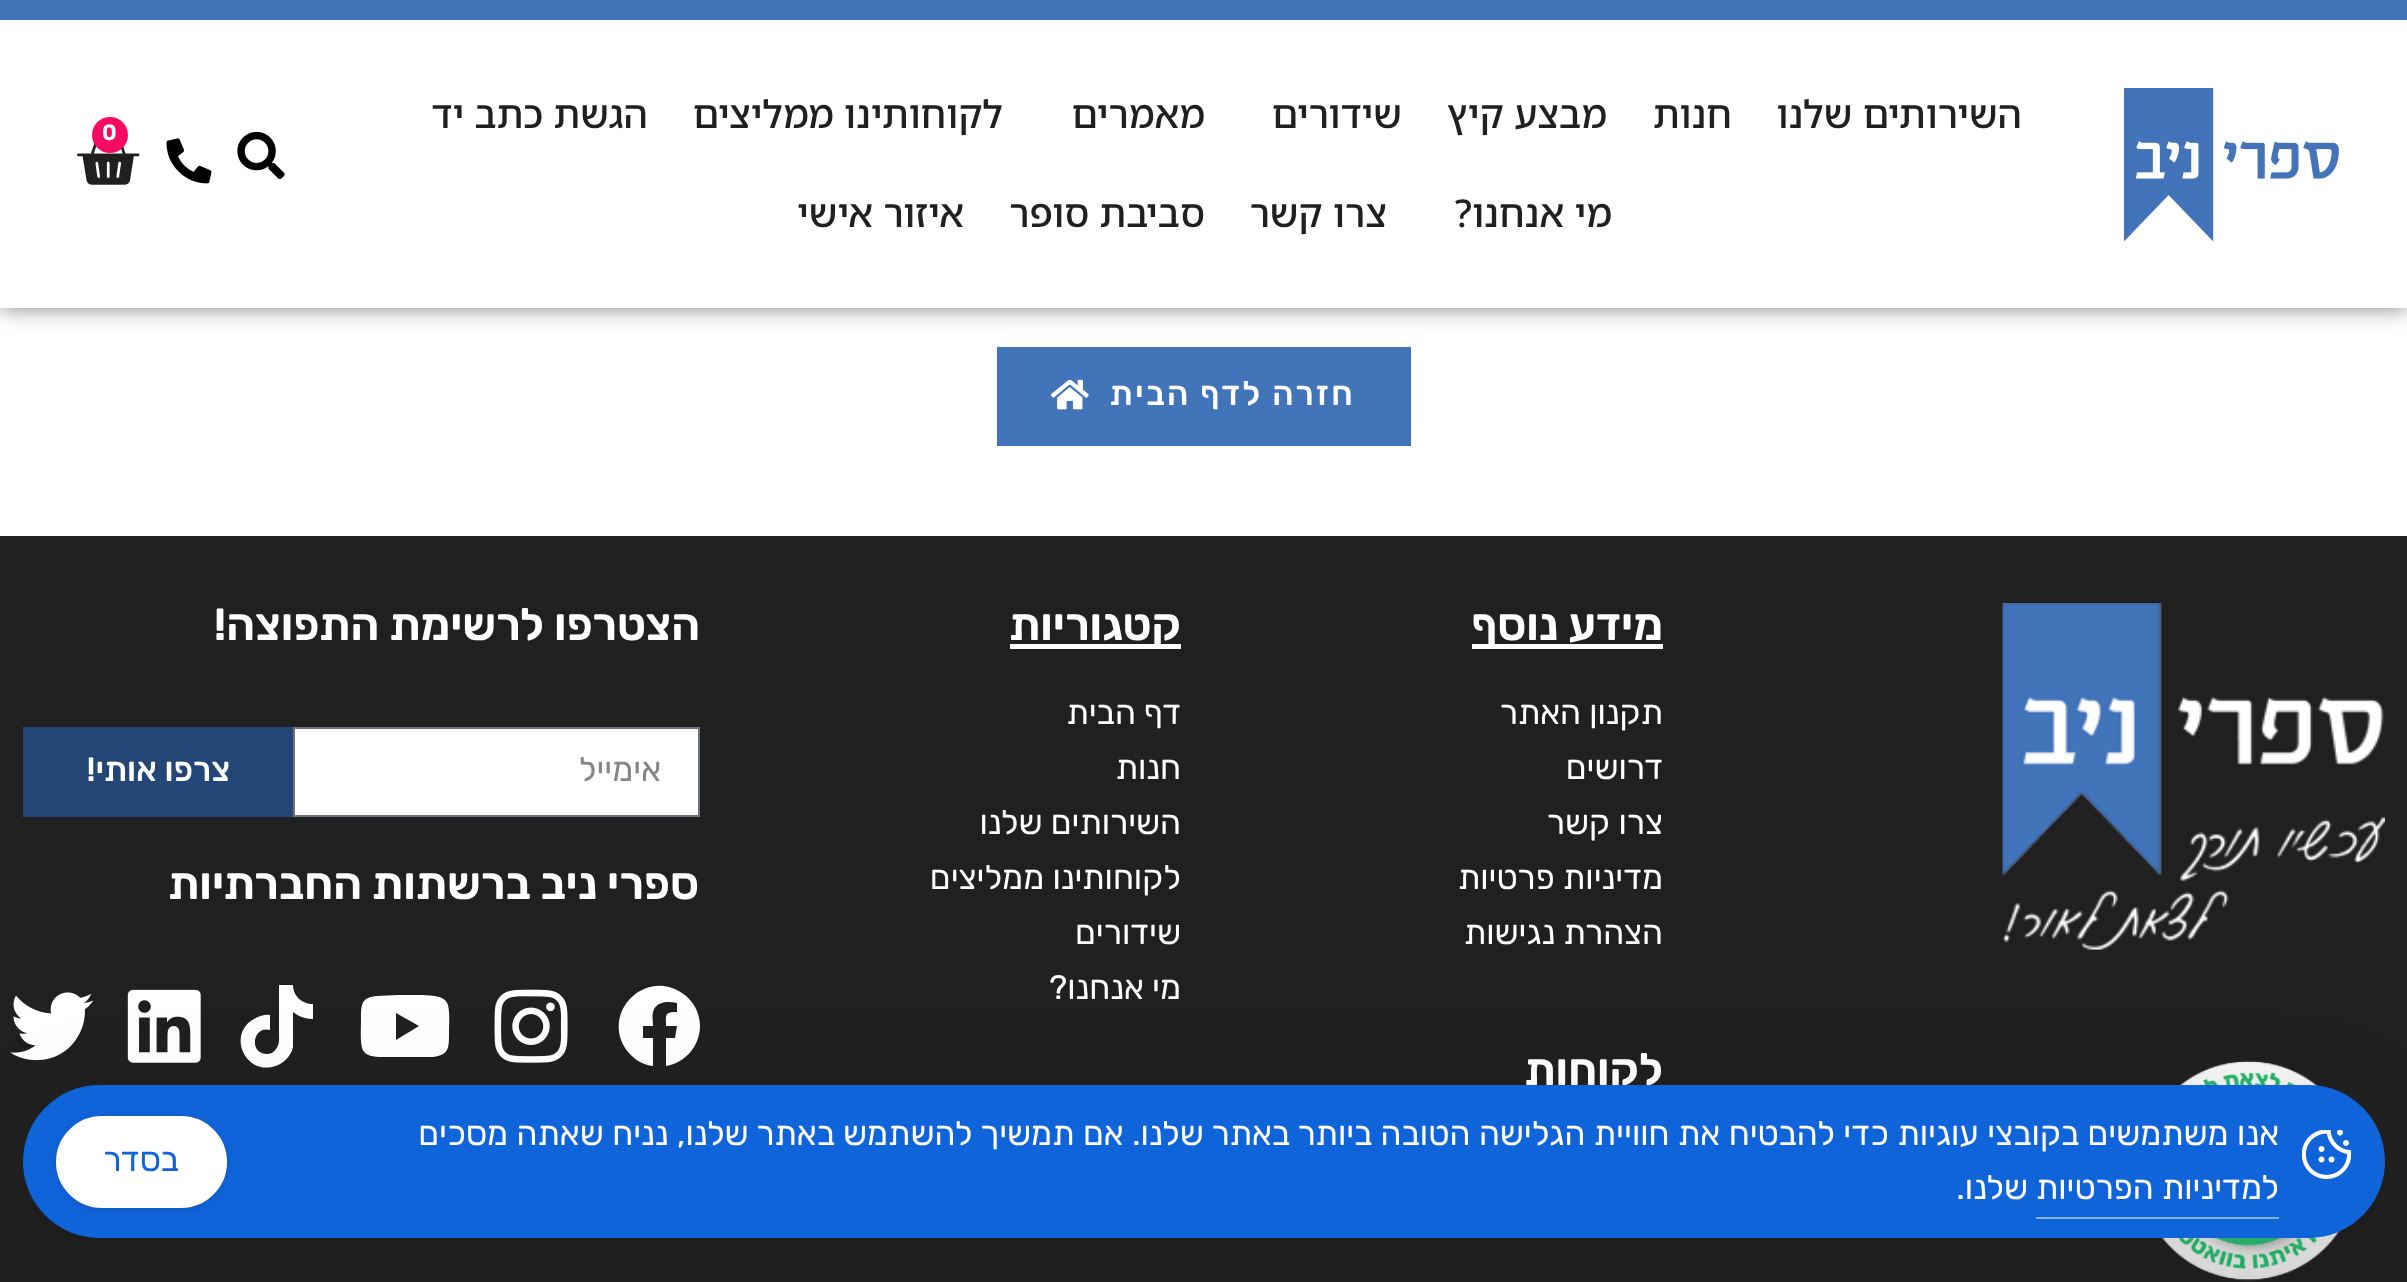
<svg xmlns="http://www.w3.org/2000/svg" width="2407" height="1282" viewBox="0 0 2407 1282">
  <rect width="100%" height="100%" fill="rgb(255,255,255)"/>
  <rect x="0" y="0" width="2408" height="308" fill="rgba(0,0,0,0.5)" filter="blur(11px)"/>
  <rect x="0" y="20" width="2407" height="288" fill="rgb(255,255,255)"/>
  <rect x="0" y="0" width="2407" height="20" fill="rgb(66,116,186)"/>
  <image x="2124" y="88" width="215" height="153" href="pic1.png"/>
  <g font-family="Noto Sans Hebrew" font-size="38.25" font-weight="500" direction="rtl" fill="rgb(32,32,32)">
    <text x="2022" y="128">השירותים שלנו</text>
    <text x="1732" y="128">חנות</text>
    <text x="1607" y="128">מבצע קיץ</text>
    <text x="1402" y="128">שידורים</text>
    <text x="1205" y="128">מאמרים</text>
    <text x="1003" y="128">לקוחותינו ממליצים</text>
    <text x="648" y="128">הגשת כתב יד</text>
    <text x="1612" y="227">מי אנחנו?</text>
    <text x="1387" y="227">צרו קשר</text>
    <text x="1205" y="227">סביבת סופר</text>
    <text x="964" y="227">איזור אישי</text>
  </g>
  <image x="237" y="131" width="48" height="49" href="pic2.png"/>
  <image x="166" y="138" width="46" height="46" href="pic3.png"/>
  <image x="77" y="143" width="63" height="42" href="pic4.png"/>
  <circle cx="110" cy="135" r="18" fill="rgb(246,11,99)"/>
  <text x="102" y="140" font-family="Rubik" font-size="22" font-weight="600" fill="rgb(255,255,255)">0</text>
  <rect x="997" y="347" width="414" height="99" fill="rgb(66,116,186)"/>
  <text x="1355" y="405" font-family="Rubik" font-size="33.75" font-weight="500" letter-spacing="2.25" direction="rtl" fill="rgb(255,255,255)">חזרה לדף הבית</text>
  <image x="1050" y="379" width="39" height="31" href="pic5.png"/>
  <rect x="0" y="536" width="2407" height="746" fill="rgb(32,32,32)"/>
  <image x="2002" y="603" width="383" height="347" href="pic6.png"/>
  <rect x="1472" y="644" width="191" height="5" fill="rgb(255,255,255)"/>
  <text x="1663" y="640" font-family="Rubik" font-size="45" font-weight="600" direction="rtl" fill="rgb(255,255,255)">מידע נוסף</text>
  <g font-family="Rubik" font-size="33.75" direction="rtl" fill="rgb(255,255,255)">
    <text>
      <tspan x="1663" y="724">תקנון האתר</tspan>
      <tspan x="1663" y="779">דרושים</tspan>
      <tspan x="1663" y="834">צרו קשר</tspan>
      <tspan x="1663" y="889">מדיניות פרטיות</tspan>
      <tspan x="1663" y="944">הצהרת נגישות</tspan>
    </text>
  </g>
  <text x="1663" y="1085" font-family="Rubik" font-size="45" font-weight="600" direction="rtl" fill="rgb(255,255,255)">לקוחות</text>
  <rect x="1010" y="644" width="171" height="5" fill="rgb(255,255,255)"/>
  <text x="1181" y="640" font-family="Rubik" font-size="45" font-weight="600" direction="rtl" fill="rgb(255,255,255)">קטגוריות</text>
  <g font-family="Rubik" font-size="33.75" direction="rtl" fill="rgb(255,255,255)">
    <text>
      <tspan x="1181" y="724">דף הבית</tspan>
      <tspan x="1181" y="779">חנות</tspan>
      <tspan x="1181" y="834">השירותים שלנו</tspan>
      <tspan x="1181" y="889">לקוחותינו ממליצים</tspan>
      <tspan x="1181" y="944">שידורים</tspan>
      <tspan x="1181" y="999">מי אנחנו?</tspan>
    </text>
  </g>
  <text x="700" y="640" font-family="Rubik" font-size="45" font-weight="600" direction="rtl" fill="rgb(255,255,255)">הצטרפו לרשימת התפוצה!</text>
  <rect x="294" y="728" width="405" height="88" fill="rgb(255,255,255)" stroke="rgb(105,114,125)" stroke-width="2"/>
  <text x="661" y="781" font-family="Rubik" font-size="33.75" direction="rtl" fill="rgb(133,133,133)">אימייל</text>
  <rect x="23" y="727" width="270" height="90" fill="rgb(35,70,119)"/>
  <text x="230" y="781" font-family="Rubik" font-size="33.75" font-weight="500" direction="rtl" fill="rgb(255,255,255)">צרפו אותי!</text>
  <text x="699" y="899" font-family="Rubik" font-size="45" font-weight="600" direction="rtl" fill="rgb(255,255,255)">ספרי ניב ברשתות החברתיות</text>
  <path d="M700 1026C700 1046 685 1063 666 1066V1038H675L677 1026H666C666 1015 664 1012 677 1012V1003C668 1001 656 1001 653 1012C652 1017 653 1022 653 1026H643V1038H653V1066C643 1065 635 1060 629 1053C598 1017 643 967 682 993C693 1000 700 1013 700 1026Z" fill="rgb(255,255,255)"/>
  <image x="494" y="989" width="74" height="74" href="pic7.png"/>
  <path d="M448 1005C450 1014 449 1024 449 1033C449 1048 449 1055 433 1057H412H386C379 1057 365 1058 362 1048C360 1039 361 1029 361 1020C361 1005 361 997 377 996L398 995H424C432 996 445 995 448 1005ZM396 1040L419 1026L396 1013Z" fill="rgb(255,255,255)"/>
  <path d="M313 1019C306 1019 299 1017 293 1012V1047C291 1057 282 1065 272 1067C243 1073 228 1033 254 1019C259 1016 265 1014 270 1015V1030C253 1025 248 1054 267 1054C271 1054 274 1052 276 1049C280 1044 279 1038 279 1032V985H293C293 996 302 1004 313 1004Z" fill="rgb(255,255,255)"/>
  <image x="127" y="989" width="74" height="74" href="pic8.png"/>
  <image x="10" y="992" width="84" height="69" href="pic9.png"/>
  <image x="2162" y="1060" width="179" height="221" href="pic10.png"/>
  <rect x="0" y="1085" width="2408" height="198" rx="99" fill="rgba(0,0,0,0.05)" filter="blur(45px)"/>
  <rect x="23" y="1085" width="2362" height="153" rx="76.5" fill="rgb(16,100,217)"/>
  <image x="2302" y="1130" width="49" height="49" href="pic11.png"/>
  <g font-family="Rubik" font-size="33.75" direction="rtl" fill="rgb(255,255,255)">
    <text>
      <tspan x="2279" y="1145" word-spacing="0.25">אנו משתמשים בקובצי עוגיות כדי להבטיח את חוויית הגלישה הטובה ביותר באתר שלנו. אם תמשיך להשתמש באתר שלנו, נניח שאתה מסכים</tspan>
      <tspan x="2279" y="1199">למדיניות הפרטיות</tspan>
    </text>
  </g>
  <rect x="2036" y="1217" width="243" height="2" fill="rgb(136,178,236)"/>
  <text x="2028" y="1199" font-family="Rubik" font-size="33.75" direction="rtl" fill="rgb(255,255,255)">שלנו.</text>
  <rect x="56" y="1118" width="171" height="93" rx="46.5" fill="rgba(0,0,0,0.1)" filter="blur(4.5px)"/>
  <rect x="57" y="1117" width="169" height="90" rx="45" fill="rgb(255,255,255)" stroke="rgb(255,255,255)" stroke-width="2"/>
  <text x="179" y="1171" font-family="Rubik" font-size="33.75" direction="rtl" fill="rgb(16,100,217)">בסדר</text>
</svg>
